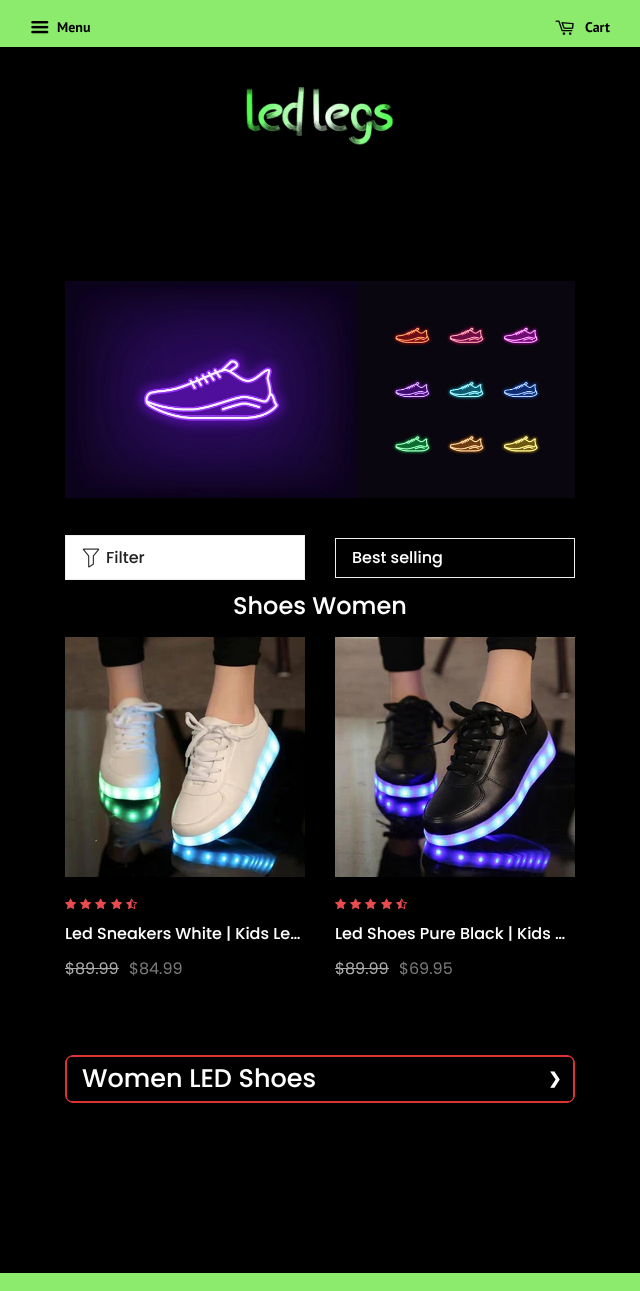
<svg xmlns="http://www.w3.org/2000/svg" width="640" height="1291" viewBox="0 0 640 1291">
  <rect width="100%" height="100%" fill="rgb(0,0,0)"/>
  <rect x="0" y="0" width="640" height="47" fill="rgb(140,234,108)"/>
  <image x="31" y="21" width="18" height="13" href="pic1.png"/>
  <text x="57" y="32" font-family="PT Sans" font-size="14" font-weight="bold" fill="rgb(0,0,0)">Menu</text>
  <image x="555" y="20" width="19" height="15" href="pic2.png"/>
  <text x="585" y="32" font-family="PT Sans" font-size="14" font-weight="bold" fill="rgb(0,0,0)">Cart</text>
  <image x="246" y="87" width="148" height="58" href="pic3.png"/>
  <image x="65" y="281" width="510" height="217" href="pic4.png"/>
  <rect x="65.5" y="535.5" width="239" height="44" fill="rgb(255,255,255)" stroke="rgb(238,238,238)"/>
  <image x="82" y="548" width="18" height="20" href="pic5.png"/>
  <text x="106" y="563" font-family="Poppins" font-size="16" font-weight="500" fill="rgb(34,34,34)">Filter</text>
  <rect x="335.5" y="538.5" width="239" height="39" fill="none" stroke="rgb(238,238,238)"/>
  <text x="352" y="563" font-family="Poppins" font-size="16" font-weight="500" fill="rgb(255,255,255)">Best selling</text>
  <text x="233" y="614" font-family="Poppins" font-size="24" font-weight="500" fill="rgb(255,255,255)">Shoes Women</text>
  <image x="65" y="637" width="240" height="240" href="pic6.png"/>
  <image x="65" y="898" width="12" height="12" href="pic7.png"/>
  <image x="80" y="898" width="12" height="12" href="pic7.png"/>
  <image x="95" y="898" width="12" height="12" href="pic7.png"/>
  <image x="111" y="898" width="12" height="12" href="pic7.png"/>
  <image x="126" y="898" width="12" height="12" href="pic8.png"/>
  <text x="65" y="939" font-family="Poppins" font-size="16" font-weight="500" fill="rgb(255,255,255)">Led Sneakers White | Kids Le…</text>
  <text x="65" y="974" font-family="Poppins" font-size="16" fill="rgb(170,170,170)">$89.99</text>
  <rect x="65" y="968" width="54" height="1" fill="rgb(170,170,170)"/>
  <text x="129" y="974" font-family="Poppins" font-size="16" fill="rgb(122,122,122)">$84.99</text>
  <image x="335" y="637" width="240" height="240" href="pic9.png"/>
  <image x="335" y="898" width="12" height="12" href="pic7.png"/>
  <image x="350" y="898" width="12" height="12" href="pic7.png"/>
  <image x="365" y="898" width="12" height="12" href="pic7.png"/>
  <image x="381" y="898" width="12" height="12" href="pic7.png"/>
  <image x="396" y="898" width="12" height="12" href="pic8.png"/>
  <text x="335" y="939" font-family="Poppins" font-size="16" font-weight="500" fill="rgb(255,255,255)">Led Shoes Pure Black | Kids …</text>
  <text x="335" y="974" font-family="Poppins" font-size="16" fill="rgb(170,170,170)">$89.99</text>
  <rect x="335" y="968" width="54" height="1" fill="rgb(170,170,170)"/>
  <text x="399" y="974" font-family="Poppins" font-size="16" fill="rgb(122,122,122)">$69.95</text>
  <path d="M73 1055C69 1055 65 1059 65 1063V1095C65 1099 69 1103 73 1103H567C571 1103 575 1099 575 1095V1063C575 1059 571 1055 567 1055ZM72 1057C69 1057 67 1059 67 1062V1096C67 1099 69 1101 72 1101H568C571 1101 573 1099 573 1096V1062C573 1059 571 1057 568 1057Z" fill="rgb(221,51,51)" fill-rule="evenodd"/>
  <text x="82" y="1087" font-family="Poppins" font-size="25.5" font-weight="500" fill="rgb(255,255,255)">Women LED Shoes</text>
  <text x="548" y="1084" font-family="DejaVu Sans" font-size="16" font-weight="bold" fill="rgb(255,255,255)">❯</text>
  <rect x="0" y="1273" width="640" height="18" fill="rgb(140,234,108)"/>
</svg>
